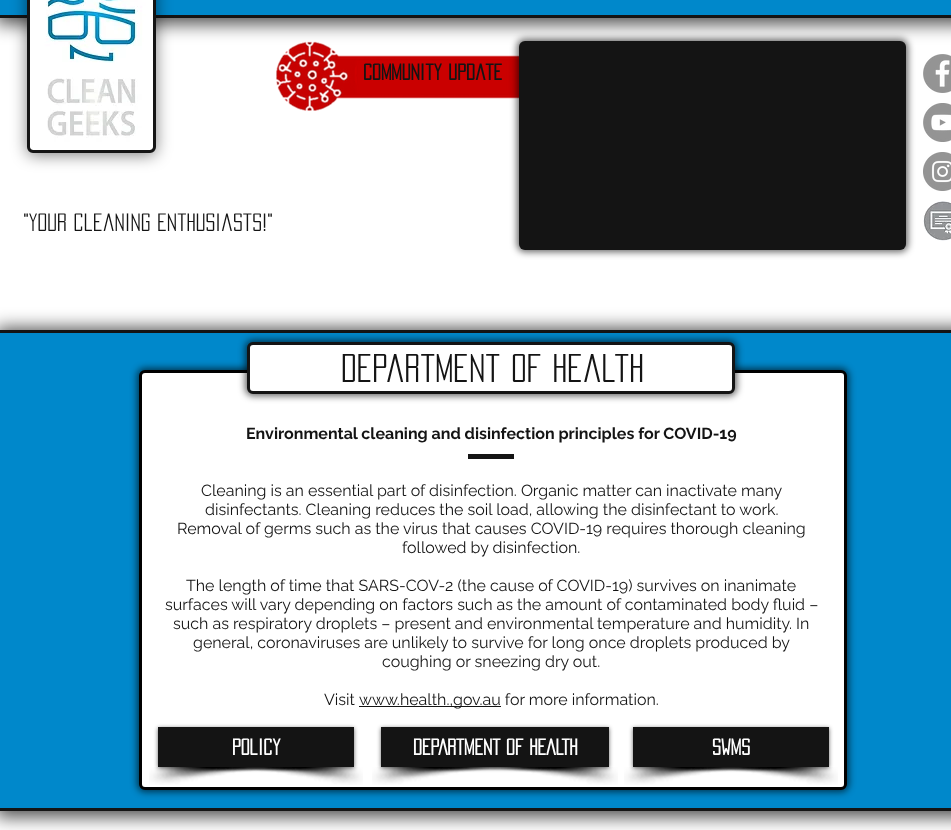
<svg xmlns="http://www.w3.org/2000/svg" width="951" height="830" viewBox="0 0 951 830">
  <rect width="100%" height="100%" fill="rgb(255,255,255)"/>
  <image x="276" y="41" width="243" height="70" href="pic2.png"/>
  <rect x="-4" y="-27" width="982" height="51" fill="rgba(0,0,0,0.7)" filter="blur(9px)"/>
  <rect x="0" y="0" width="951" height="15" fill="rgb(0,136,203)"/>
  <rect x="0" y="15" width="951" height="3" fill="rgb(20,20,20)"/>
  <rect x="27" y="-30" width="129" height="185" rx="6" fill="rgba(0,0,0,0.5)" filter="blur(8px)"/>
  <rect x="28.5" y="-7.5" width="126" height="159" rx="4.5" fill="rgb(20,20,20)" stroke="rgb(20,20,20)" stroke-width="3"/>
  <image x="30" y="0" width="123" height="150" href="pic1.png"/>
  <rect x="517" y="39" width="391" height="213" rx="8" fill="rgba(0,0,0,0.6)" filter="blur(3.5px)"/>
  <rect x="519" y="41" width="387" height="209" rx="6" fill="rgb(20,20,20)"/>
  <image x="923" y="54" width="28" height="39" href="pic3.png"/>
  <image x="923" y="103" width="28" height="39" href="pic4.png"/>
  <image x="923" y="152" width="28" height="39" href="pic5.png"/>
  <text x="363" y="80" font-family="'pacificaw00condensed'" font-size="20" font-weight="bold" fill="rgb(20,20,20)">community update</text>
  <text x="23" y="231" font-family="'pacificaw00condensed'" font-size="22" fill="rgb(20,20,20)">"Your cleaning Enthusiasts!"</text>
  <image x="923" y="201" width="28" height="40" href="pic6.png"/>
  <rect x="-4" y="328" width="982" height="489" fill="rgba(0,0,0,0.7)" filter="blur(9px)"/>
  <rect x="0" y="333" width="951" height="475" fill="rgb(0,136,203)"/>
  <rect x="0" y="330" width="951" height="3" fill="rgb(20,20,20)"/>
  <rect x="0" y="808" width="951" height="3" fill="rgb(20,20,20)"/>
  <rect x="137" y="368" width="712" height="424" rx="8" fill="rgba(0,0,0,0.6)" filter="blur(3.5px)"/>
  <rect x="140.5" y="371.5" width="705" height="417" rx="4.5" fill="rgb(255,255,255)" stroke="rgb(0,0,0)" stroke-width="3"/>
  <rect x="245" y="340" width="492" height="56" rx="8" fill="rgba(0,0,0,0.6)" filter="blur(3.5px)"/>
  <rect x="248.5" y="343.5" width="485" height="49" rx="4.5" fill="rgb(255,255,255)" stroke="rgb(20,20,20)" stroke-width="3"/>
  <text x="341" y="382" font-family="'pacificaw00condensed'" font-size="35" fill="rgb(20,20,20)">Department of health</text>
  <text x="246" y="439" font-family="Raleway" font-size="16" font-weight="bold" fill="rgb(20,20,20)">Environmental cleaning and disinfection principles for COVID-19</text>
  <g font-family="Raleway" font-size="16" fill="rgb(20,20,20)">
    <text x="201" y="496">Cleaning is an essential part of disinfection. Organic matter can inactivate many</text>
    <text x="205" y="515">disinfectants. Cleaning reduces the soil load, allowing the disinfectant to work.</text>
    <text x="177" y="534">Removal of germs such as the virus that causes COVID-19 requires thorough cleaning</text>
    <text x="402" y="553">followed by disinfection.</text>
    <text x="186" y="591">The length of time that SARS-COV-2 (the cause of COVID-19) survives on inanimate</text>
    <text x="165" y="610">surfaces will vary depending on factors such as the amount of contaminated body fluid –</text>
    <text x="173" y="629">such as respiratory droplets – present and environmental temperature and humidity. In</text>
    <text x="193" y="648">general, coronaviruses are unlikely to survive for long once droplets produced by</text>
    <text x="382" y="667">coughing or sneezing dry out.</text>
    <text x="324" y="705">Visit</text>
  </g>
  <rect x="359" y="706" width="142" height="1" fill="rgb(20,20,20)"/>
  <text x="359" y="705" font-family="Raleway" font-size="16" fill="rgb(20,20,20)">www.health.,gov.au for more information.</text>
  <rect x="468" y="454" width="46" height="5" fill="rgb(20,20,20)"/>
  <image x="149" y="767" width="144" height="18" href="pic7.png"/>
  <image x="233" y="767" width="130" height="18" href="pic8.png"/>
  <rect x="158" y="728" width="196" height="40" fill="rgba(0,0,0,0.6)" filter="blur(2px)"/>
  <rect x="158" y="727" width="196" height="40" fill="rgb(20,20,20)"/>
  <text x="232" y="755" font-family="'pacificaw00condensed'" font-size="20" font-weight="bold" fill="rgb(255,255,255)">Policy</text>
  <image x="372" y="767" width="154" height="18" href="pic9.png"/>
  <image x="475" y="767" width="143" height="18" href="pic10.png"/>
  <rect x="381" y="728" width="228" height="40" fill="rgba(0,0,0,0.6)" filter="blur(2px)"/>
  <rect x="381" y="727" width="228" height="40" fill="rgb(20,20,20)"/>
  <text x="413" y="755" font-family="'pacificaw00condensed'" font-size="20" font-weight="bold" fill="rgb(255,255,255)">DEPARTMENT OF HEALTH</text>
  <image x="624" y="767" width="144" height="18" href="pic7.png"/>
  <image x="708" y="767" width="130" height="18" href="pic8.png"/>
  <rect x="633" y="728" width="196" height="40" fill="rgba(0,0,0,0.6)" filter="blur(2px)"/>
  <rect x="633" y="727" width="196" height="40" fill="rgb(20,20,20)"/>
  <text x="712" y="755" font-family="'pacificaw00condensed'" font-size="20" font-weight="bold" fill="rgb(255,255,255)">SWMS</text>
</svg>
